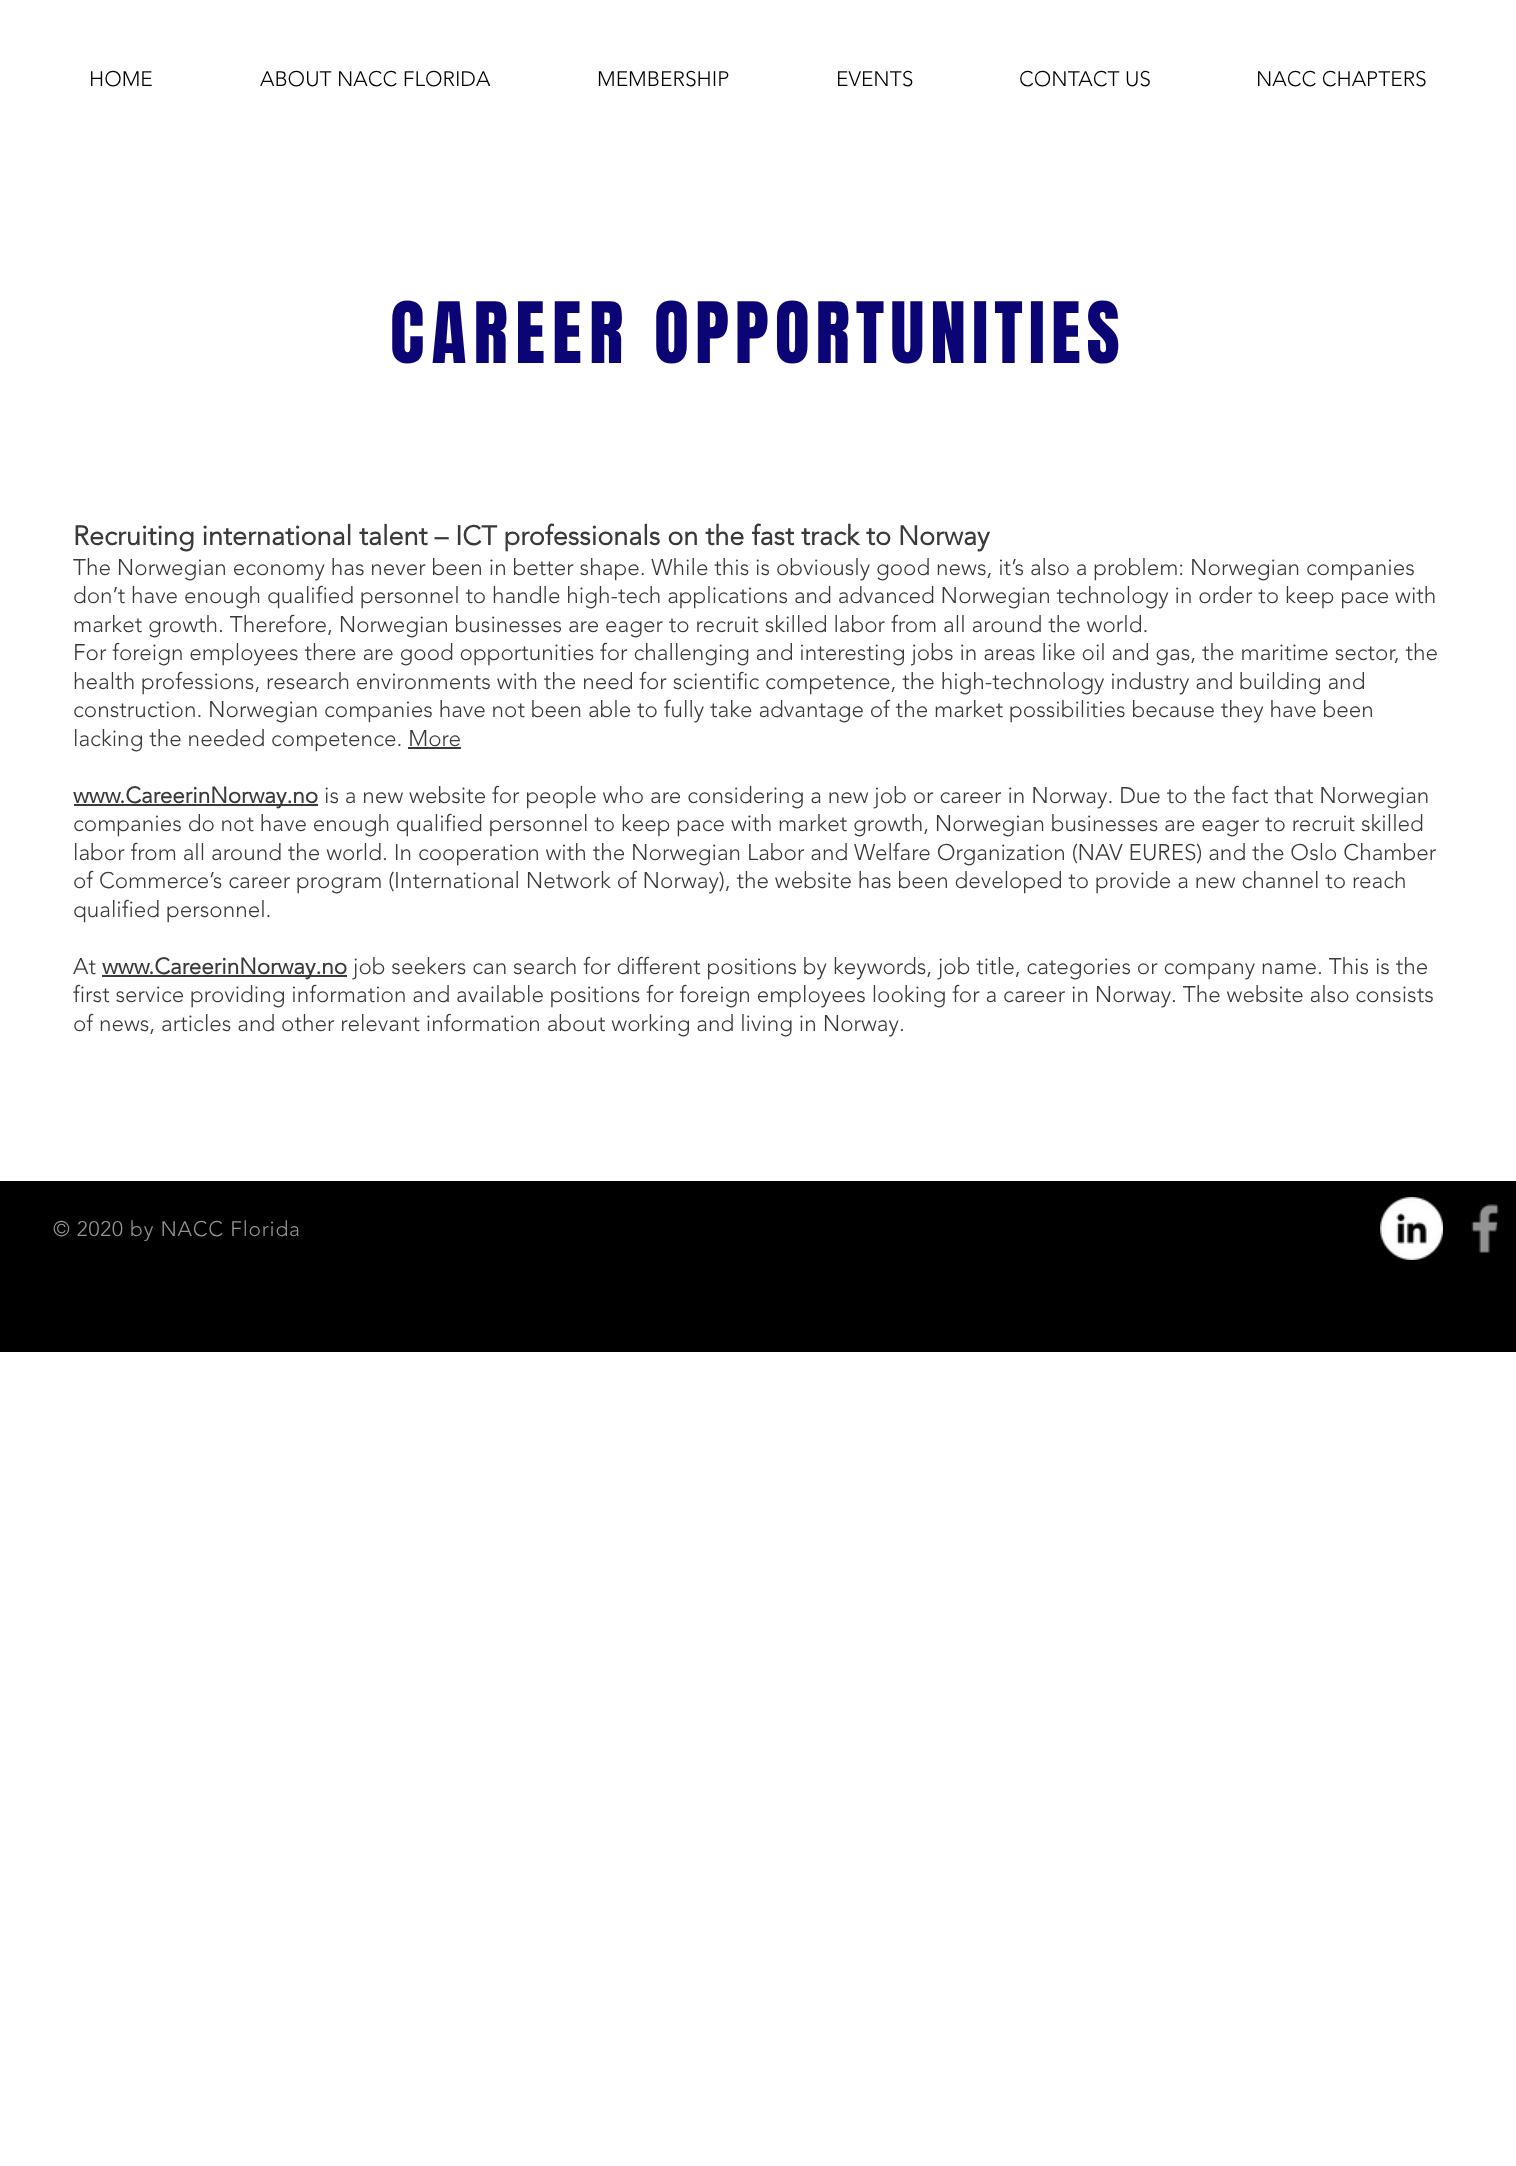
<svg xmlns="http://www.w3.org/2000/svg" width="1516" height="2166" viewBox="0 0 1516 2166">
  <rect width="100%" height="100%" fill="rgb(255,255,255)"/>
  <g font-family="'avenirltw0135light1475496'" font-size="21" font-weight="300" fill="rgb(0,0,0)">
    <text x="89" y="86">HOME</text>
    <text x="260" y="86">ABOUT NACC FLORIDA</text>
    <text x="597" y="86">MEMBERSHIP</text>
    <text x="836" y="86">EVENTS</text>
    <text x="1019" y="86">CONTACT US</text>
    <text x="1256" y="86">NACC CHAPTERS</text>
  </g>
  <text x="390" y="363" font-family="Anton" font-size="72" letter-spacing="7.25" fill="rgb(11,4,117)">CAREER</text>
  <text x="654" y="363" font-family="Anton" font-size="72" letter-spacing="5.9" fill="rgb(11,4,117)">OPPORTUNITIES</text>
  <text x="73" y="545" font-family="'avenirltw0135light1475496'" font-size="27" font-weight="bold" fill="rgb(59,58,58)">Recruiting international talent – ICT professionals on the fast track to Norway</text>
  <g font-family="'avenirltw0135light1475496'" font-size="22.5" font-weight="300" fill="rgb(59,58,58)">
    <text>
      <tspan x="73" y="575">The Norwegian economy has never been in better shape. While this is obviously good news, it’s also a problem: Norwegian companies</tspan>
      <tspan x="73" y="603">don’t have enough qualified personnel to handle high-tech applications and advanced Norwegian technology in order to keep pace with</tspan>
      <tspan x="73" y="632">market growth. Therefore, Norwegian businesses are eager to recruit skilled labor from all around the world.</tspan>
      <tspan x="73" y="660">For foreign employees there are good opportunities for challenging and interesting jobs in areas like oil and gas, the maritime sector, the</tspan>
      <tspan x="73" y="689">health professions, research environments with the need for scientific competence, the high-technology industry and building and</tspan>
      <tspan x="73" y="717">construction. Norwegian companies have not been able to fully take advantage of the market possibilities because they have been</tspan>
      <tspan x="73" y="746">lacking the needed competence. More</tspan>
    </text>
  </g>
  <rect x="408" y="747" width="53" height="2" fill="rgb(59,58,58)"/>
  <rect x="74" y="804" width="244" height="2" fill="rgb(59,58,58)"/>
  <text x="73" y="803" font-family="'avenirltw0135light1475496'" font-size="22.5" font-weight="bold" fill="rgb(59,58,58)">www.CareerinNorway.no</text>
  <g font-family="'avenirltw0135light1475496'" font-size="22.5" font-weight="300" fill="rgb(59,58,58)">
    <text x="324" y="803">is a new website for people who are considering a new job or career in Norway. Due to the fact that Norwegian</text>
    <text>
      <tspan x="73" y="831">companies do not have enough qualified personnel to keep pace with market growth, Norwegian businesses are eager to recruit skilled</tspan>
      <tspan x="73" y="860">labor from all around the world. In cooperation with the Norwegian Labor and Welfare Organization (NAV EURES) and the Oslo Chamber</tspan>
      <tspan x="73" y="888">of Commerce’s career program (International Network of Norway), the website has been developed to provide a new channel to reach</tspan>
      <tspan x="73" y="917">qualified personnel.</tspan>
    </text>
    <text x="73" y="974">At</text>
  </g>
  <rect x="102" y="975" width="245" height="2" fill="rgb(59,58,58)"/>
  <text x="102" y="974" font-family="'avenirltw0135light1475496'" font-size="22.5" font-weight="bold" fill="rgb(59,58,58)">www.CareerinNorway.no</text>
  <g font-family="'avenirltw0135light1475496'" font-size="22.5" font-weight="300" fill="rgb(59,58,58)">
    <text x="353" y="974">job seekers can search for different positions by keywords, job title, categories or company name. This is the</text>
    <text>
      <tspan x="73" y="1002">first service providing information and available positions for foreign employees looking for a career in Norway. The website also consists</tspan>
      <tspan x="73" y="1031">of news, articles and other relevant information about working and living in Norway.</tspan>
    </text>
  </g>
  <rect x="0" y="1181" width="1516" height="171" fill="rgb(0,0,0)"/>
  <text x="53" y="1236" font-family="'avenirltw0135light1475496'" font-size="21" font-weight="300" letter-spacing="0.8" fill="rgb(148,148,148)">© 2020 by NACC Florida</text>
  <image x="1380" y="1197" width="63" height="63" href="pic1.png"/>
  <image x="1471" y="1204" width="28" height="49" href="pic2.png"/>
</svg>
